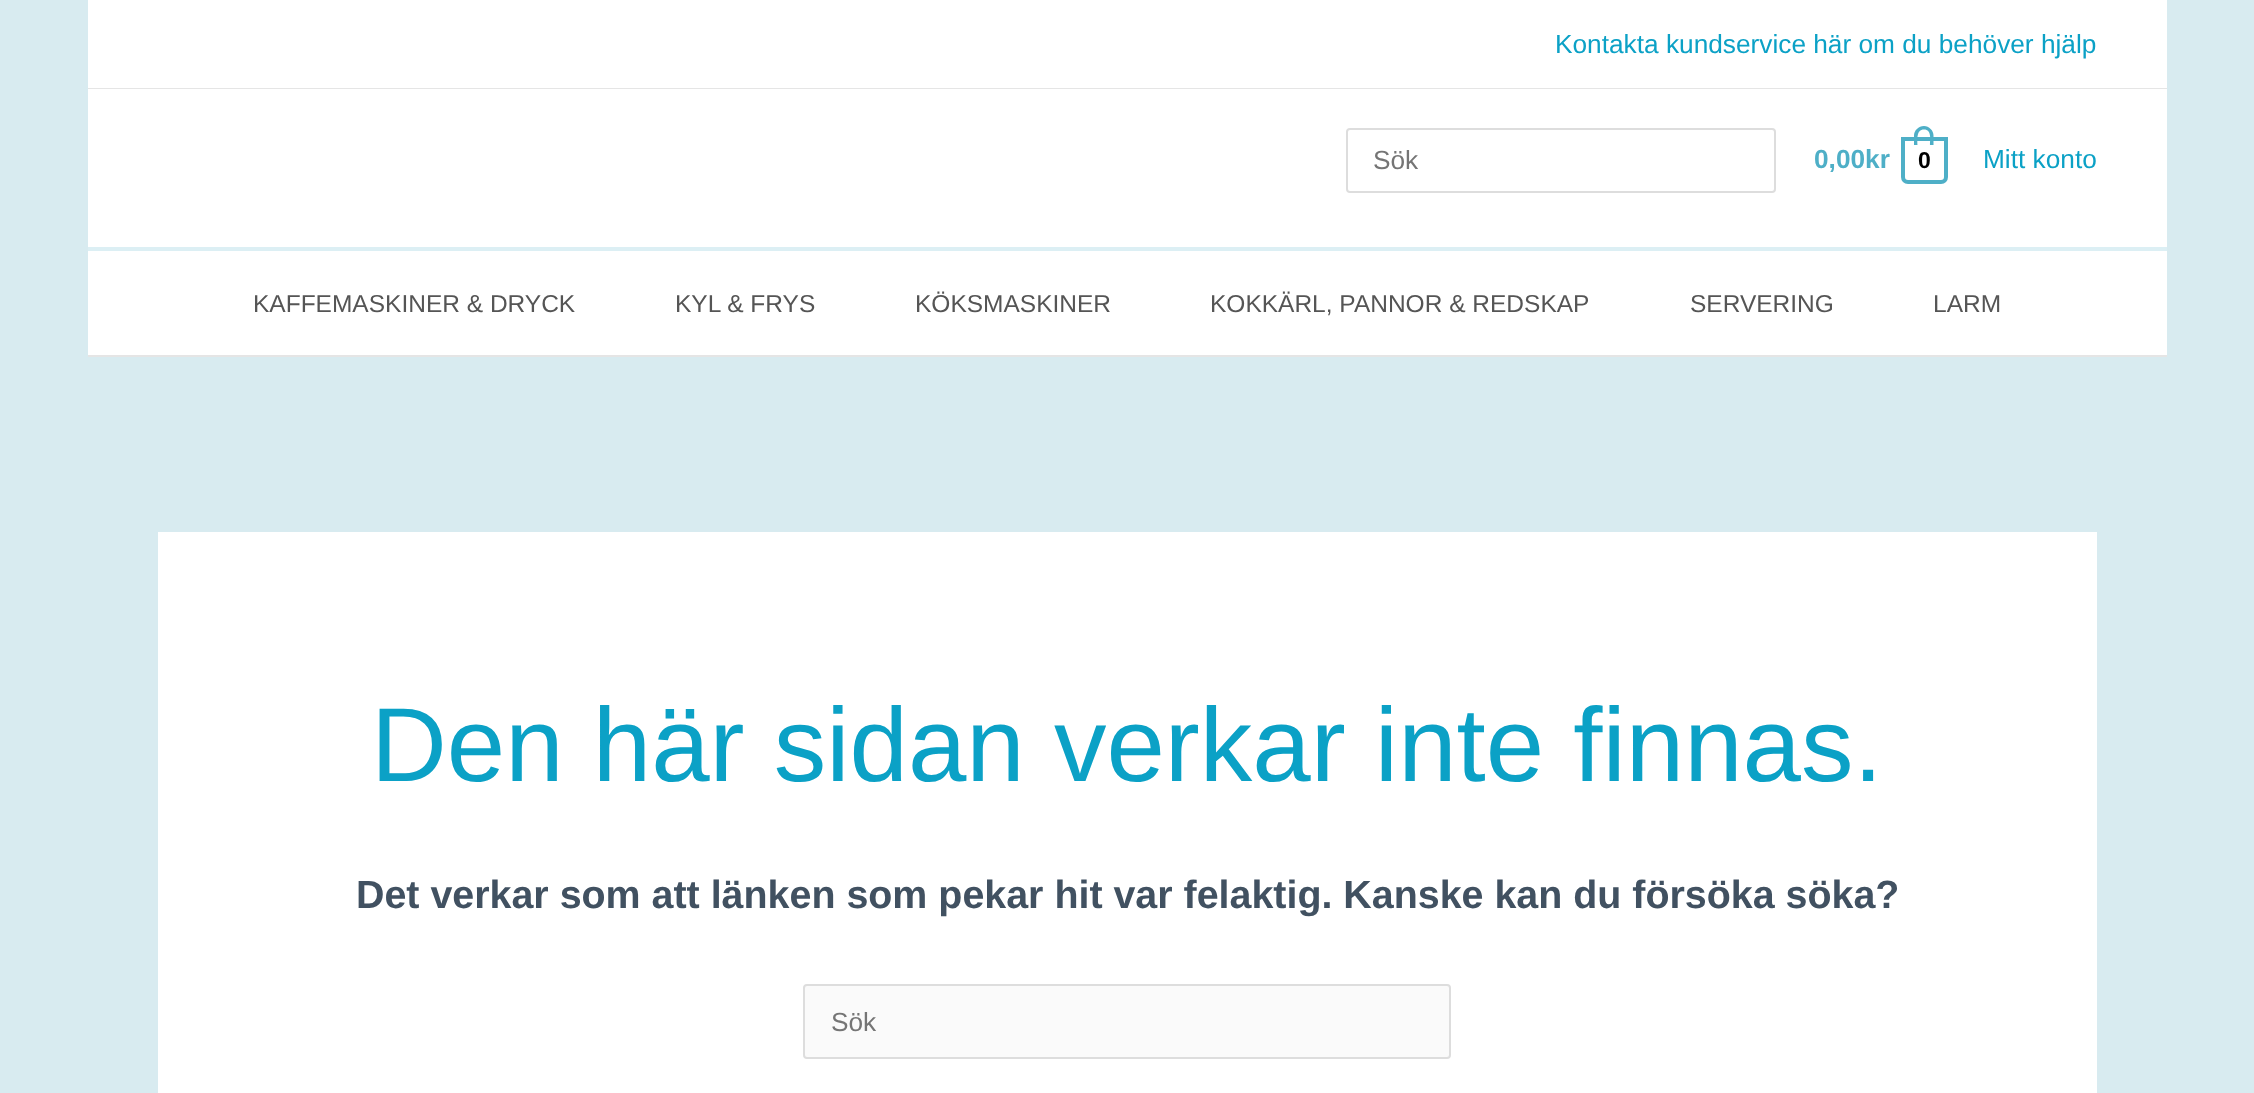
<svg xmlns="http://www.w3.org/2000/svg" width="2254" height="1093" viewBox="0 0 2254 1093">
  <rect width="100%" height="100%" fill="rgb(216,235,240)"/>
  <rect x="88" y="0" width="2079" height="88" fill="rgb(255,255,255)"/>
  <rect x="88" y="88" width="2079" height="1" fill="rgb(229,229,229)"/>
  <text x="1555" y="53" font-family="Liberation Sans" font-size="26.25" fill="rgb(11,161,198)">Kontakta kundservice här om du behöver hjälp</text>
  <rect x="88" y="89" width="2079" height="158" fill="rgb(255,255,255)"/>
  <rect x="88" y="247" width="2079" height="4" fill="rgb(220,239,244)"/>
  <rect x="1347" y="129" width="428" height="63" rx="3" fill="none" stroke="rgb(221,221,221)" stroke-width="2"/>
  <text x="1373" y="169" font-family="Liberation Sans" font-size="26.25" fill="rgb(117,117,117)">Sök</text>
  <text x="1814" y="168" font-family="Liberation Sans" font-size="26.25" font-weight="bold" fill="rgb(78,175,199)">0,00kr</text>
  <path d="M1903 139H1946V177C1946 180 1944 182 1941 182H1908C1905 182 1903 180 1903 177Z" fill="none" stroke="rgb(78,175,199)" stroke-width="4"/>
  <path d="M1924 126C1929 126 1933.5 130.5 1933.5 135.5V145H1914V135.5C1914 130.5 1918.5 126 1924 126ZM1924 129.5C1932 129.5 1930 140 1930 145H1917.5C1917.5 140 1916 129.5 1924 129.5Z" fill="rgb(78,175,199)" fill-rule="evenodd"/>
  <text x="1918" y="168" font-family="Liberation Sans" font-size="23" font-weight="bold" fill="rgb(0,0,0)">0</text>
  <text x="1983" y="168" font-family="Liberation Sans" font-size="26.25" fill="rgb(11,161,198)">Mitt konto</text>
  <rect x="88" y="251" width="2079" height="104" fill="rgb(255,255,255)"/>
  <rect x="88" y="355" width="2079" height="2" fill="rgb(229,229,229)"/>
  <g font-family="Liberation Sans" font-size="24.5" fill="rgb(85,85,85)">
    <text x="253" y="312">KAFFEMASKINER &amp; DRYCK</text>
    <text x="675" y="312">KYL &amp; FRYS</text>
    <text x="915" y="312">KÖKSMASKINER</text>
    <text x="1210" y="312">KOKKÄRL, PANNOR &amp; REDSKAP</text>
    <text x="1690" y="312">SERVERING</text>
    <text x="1933" y="312">LARM</text>
  </g>
  <rect x="158" y="532" width="1939" height="561" fill="rgb(255,255,255)"/>
  <text x="371" y="781" font-family="Liberation Sans" font-size="105" fill="rgb(11,161,198)">Den här sidan verkar inte finnas.</text>
  <text x="356" y="908" font-family="Liberation Sans" font-size="39.4" font-weight="bold" fill="rgb(65,81,97)">Det verkar som att länken som pekar hit var felaktig. Kanske kan du försöka söka?</text>
  <rect x="804" y="985" width="646" height="73" rx="3" fill="rgb(250,250,250)" stroke="rgb(221,221,221)" stroke-width="2"/>
  <text x="831" y="1031" font-family="Liberation Sans" font-size="26.25" fill="rgb(117,117,117)">Sök</text>
</svg>
